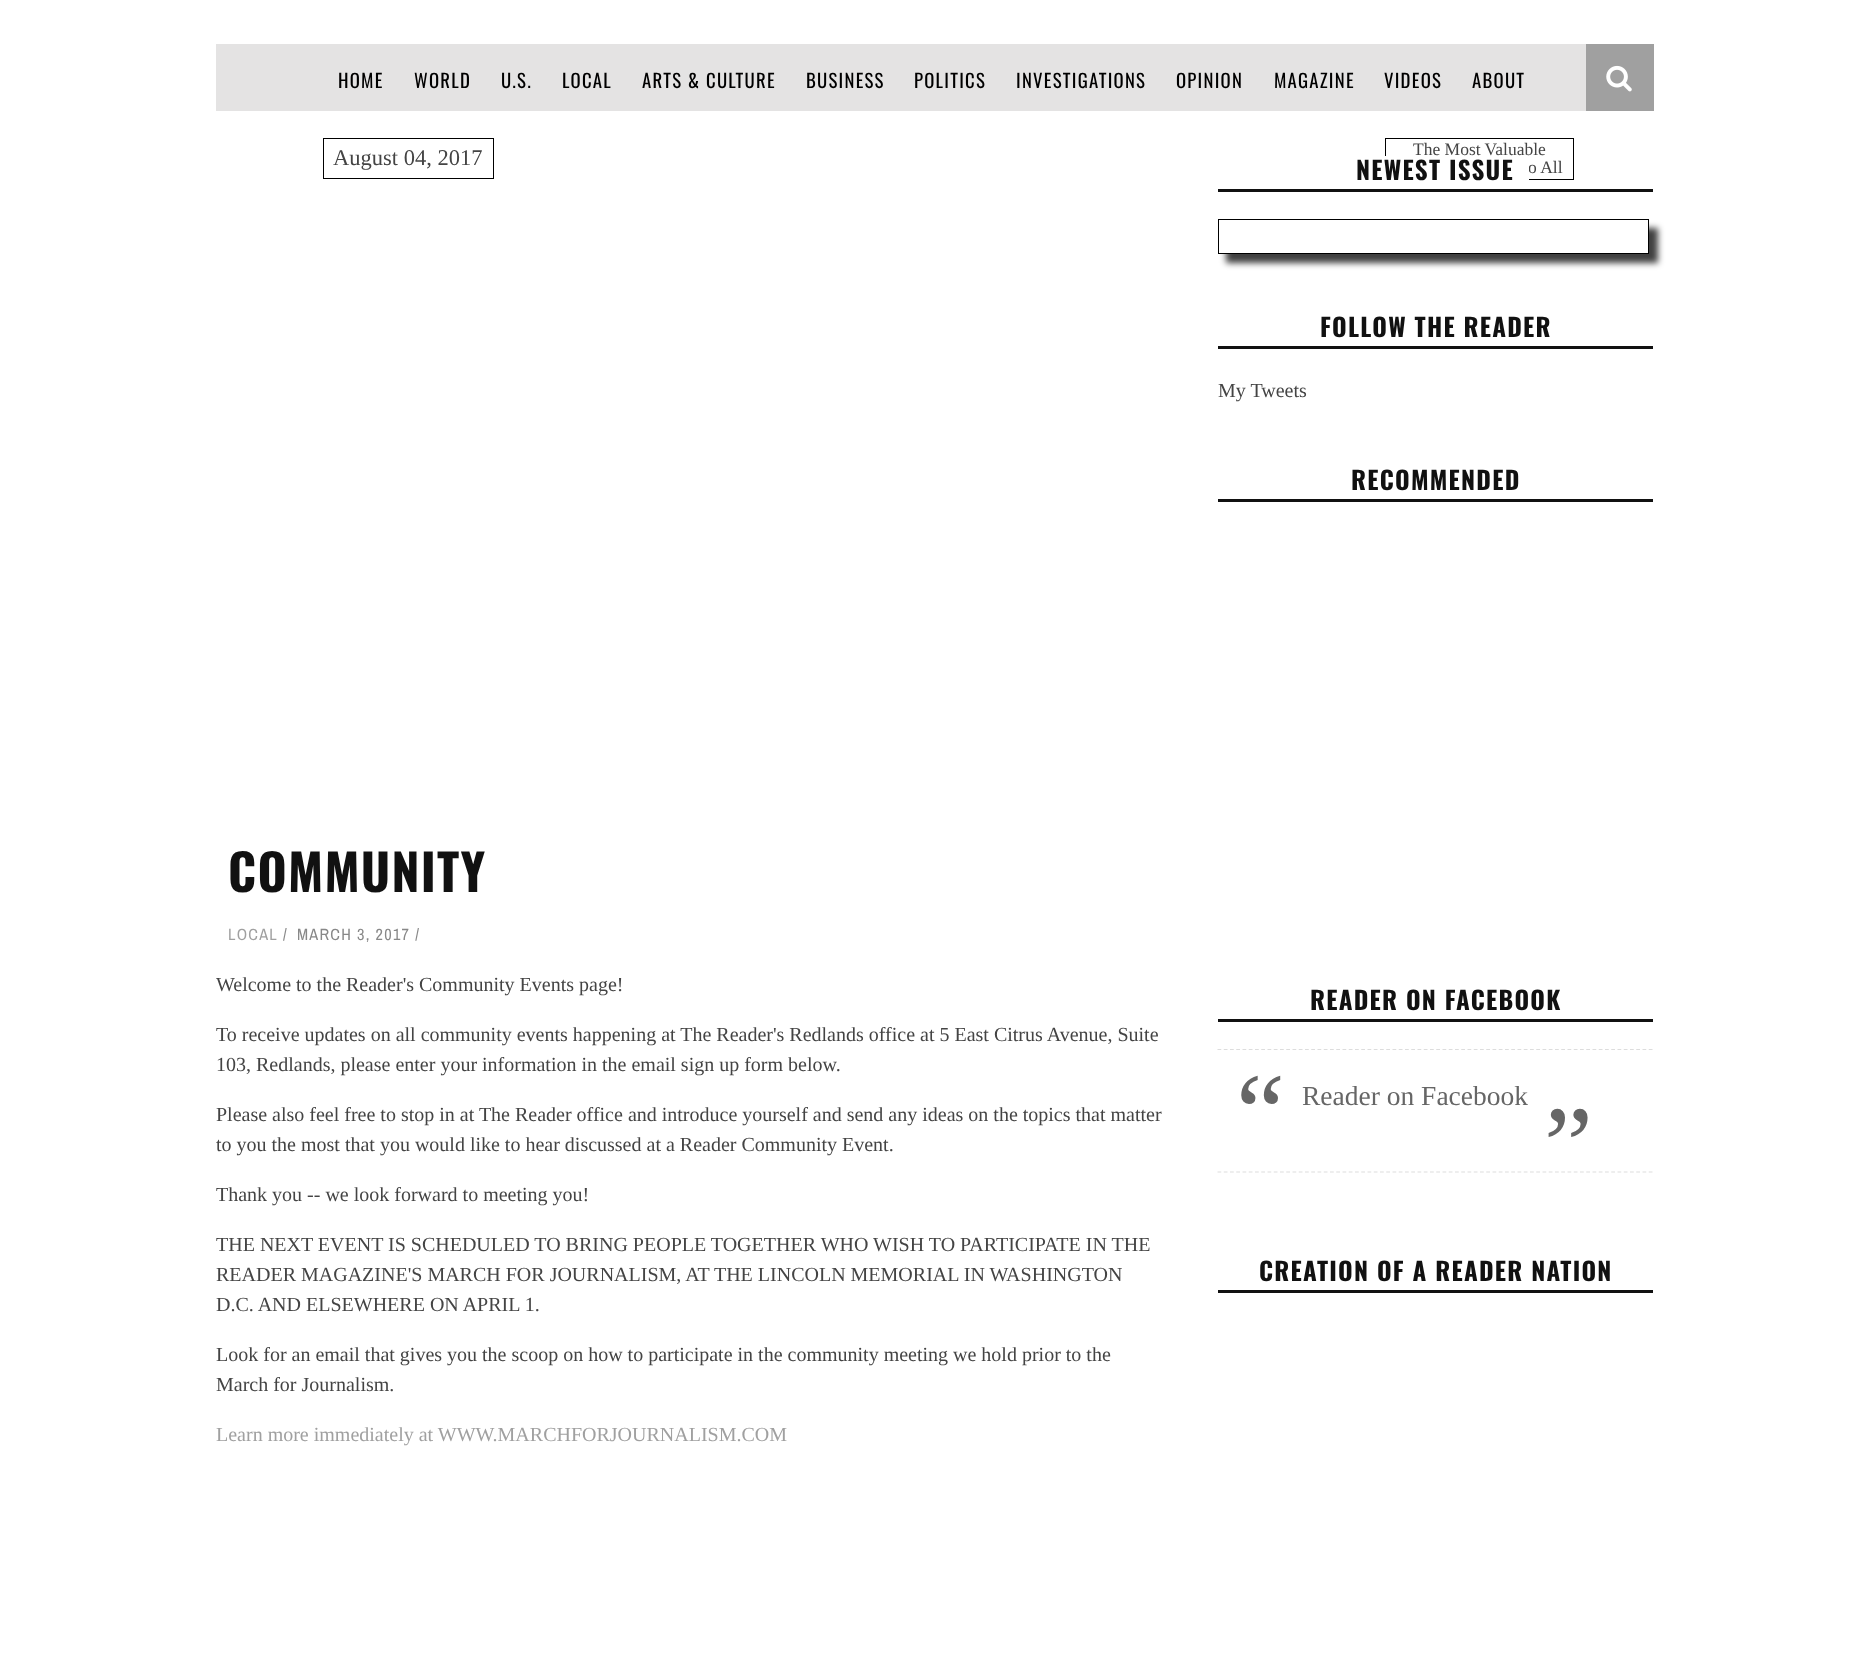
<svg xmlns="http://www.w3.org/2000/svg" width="1868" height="1671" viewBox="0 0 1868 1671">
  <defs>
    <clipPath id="clip1"><path d="M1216 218H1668V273H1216ZM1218 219H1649V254H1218Z" clip-rule="evenodd"/></clipPath>
  </defs>
  <rect width="100%" height="100%" fill="rgb(255,255,255)"/>
  <rect x="216" y="44" width="1370" height="67" fill="rgb(228,227,227)"/>
  <g font-family="Oswald" font-size="18.75" letter-spacing="1.25" fill="rgb(0,0,0)">
    <text x="338" y="88">HOME</text>
    <text x="414" y="88">WORLD</text>
    <text x="501" y="88">U.S.</text>
    <text x="562" y="88">LOCAL</text>
    <text x="642" y="88">ARTS &amp; CULTURE</text>
    <text x="806" y="88">BUSINESS</text>
    <text x="914" y="88">POLITICS</text>
    <text x="1016" y="88">INVESTIGATIONS</text>
    <text x="1176" y="88">OPINION</text>
    <text x="1274" y="88">MAGAZINE</text>
    <text x="1384" y="88">VIDEOS</text>
    <text x="1472" y="88">ABOUT</text>
  </g>
  <rect x="1586" y="44" width="68" height="67" fill="rgb(160,160,160)"/>
  <image x="1606" y="65" width="26" height="27" href="pic1.png"/>
  <rect x="323.5" y="138.5" width="170" height="40" fill="none" stroke="rgb(0,0,0)"/>
  <text x="333" y="165" font-family="Liberation Serif" font-size="22.5" fill="rgb(68,68,68)">August 04, 2017</text>
  <rect x="1385.5" y="138.5" width="188" height="41" fill="none" stroke="rgb(0,0,0)"/>
  <g font-family="Liberation Serif" font-size="17.5" fill="rgb(68,68,68)">
    <text x="1413" y="155">The Most Valuable</text>
    <text x="1528" y="173">o All</text>
  </g>
  <text x="228" y="892" font-family="Oswald" font-size="50" font-weight="bold" letter-spacing="1.25" fill="rgb(17,17,17)">COMMUNITY</text>
  <text x="228" y="940" font-family="Archivo Narrow" font-size="16.25" letter-spacing="1.25" fill="rgb(160,160,160)">LOCAL</text>
  <g font-family="Archivo Narrow" font-size="16.25" letter-spacing="1.25" fill="rgb(136,136,136)">
    <text x="283" y="940">/</text>
    <text x="297" y="940">MARCH 3, 2017 /</text>
  </g>
  <g font-family="Liberation Serif" font-size="20" fill="rgb(68,68,68)">
    <text x="216" y="991">Welcome to the Reader's Community Events page!</text>
    <text>
      <tspan x="216" y="1041">To receive updates on all community events happening at The Reader's Redlands office at 5 East Citrus Avenue, Suite</tspan>
      <tspan x="216" y="1071">103, Redlands, please enter your information in the email sign up form below.</tspan>
    </text>
    <text>
      <tspan x="216" y="1121">Please also feel free to stop in at The Reader office and introduce yourself and send any ideas on the topics that matter</tspan>
      <tspan x="216" y="1151">to you the most that you would like to hear discussed at a Reader Community Event.</tspan>
    </text>
    <text x="216" y="1201">Thank you -- we look forward to meeting you!</text>
    <text>
      <tspan x="216" y="1251">THE NEXT EVENT IS SCHEDULED TO BRING PEOPLE TOGETHER WHO WISH TO PARTICIPATE IN THE</tspan>
      <tspan x="216" y="1281">READER MAGAZINE'S MARCH FOR JOURNALISM, AT THE LINCOLN MEMORIAL IN WASHINGTON</tspan>
      <tspan x="216" y="1311">D.C. AND ELSEWHERE ON APRIL 1.</tspan>
    </text>
    <text>
      <tspan x="216" y="1361">Look for an email that gives you the scoop on how to participate in the community meeting we hold prior to the</tspan>
      <tspan x="216" y="1391">March for Journalism.</tspan>
    </text>
  </g>
  <text x="216" y="1441" font-family="Liberation Serif" font-size="20" fill="rgb(160,160,160)">Learn more immediately at WWW.MARCHFORJOURNALISM.COM</text>
  <rect x="1385" y="156" width="144" height="24" fill="rgb(255,255,255)"/>
  <text x="1356" y="180" font-family="Oswald" font-size="25" font-weight="bold" letter-spacing="1.25" fill="rgb(17,17,17)">NEWEST ISSUE</text>
  <rect x="1218" y="189" width="435" height="3" fill="rgb(17,17,17)"/>
  <g clip-path="url(#clip1)">
    <rect x="1226" y="228" width="432" height="35" fill="rgba(0,0,0,0.75)" filter="blur(3px)"/>
  </g>
  <rect x="1218.5" y="219.5" width="430" height="34" fill="none" stroke="rgb(0,0,0)"/>
  <text x="1320" y="337" font-family="Oswald" font-size="25" font-weight="bold" letter-spacing="1.25" fill="rgb(17,17,17)">FOLLOW THE READER</text>
  <rect x="1218" y="346" width="435" height="3" fill="rgb(17,17,17)"/>
  <text x="1218" y="397" font-family="Liberation Serif" font-size="20" fill="rgb(68,68,68)">My Tweets</text>
  <text x="1351" y="490" font-family="Oswald" font-size="25" font-weight="bold" letter-spacing="1.25" fill="rgb(17,17,17)">RECOMMENDED</text>
  <rect x="1218" y="499" width="435" height="3" fill="rgb(17,17,17)"/>
  <text x="1310" y="1010" font-family="Oswald" font-size="25" font-weight="bold" letter-spacing="1.25" fill="rgb(17,17,17)">READER ON FACEBOOK</text>
  <rect x="1218" y="1019" width="435" height="3" fill="rgb(17,17,17)"/>
  <path d="M1217.5 1049.5H1652.5" fill="none" stroke="rgb(221,221,221)" stroke-width="1.2" stroke-dasharray="3.75 2.5"/>
  <path d="M1217.5 1172H1652.5" fill="none" stroke="rgb(221,221,221)" stroke-width="1.2" stroke-dasharray="3.75 2.5"/>
  <text x="1236" y="1149" font-family="Liberation Serif" font-size="110" fill="rgb(102,102,102)">“</text>
  <text x="1302" y="1105" font-family="Liberation Serif" font-size="27.5" fill="rgb(102,102,102)">Reader on Facebook</text>
  <text x="1544" y="1182" font-family="Liberation Serif" font-size="110" fill="rgb(102,102,102)">”</text>
  <text x="1259" y="1281" font-family="Oswald" font-size="25" font-weight="bold" letter-spacing="1.25" fill="rgb(17,17,17)">CREATION OF A READER NATION</text>
  <rect x="1218" y="1290" width="435" height="3" fill="rgb(17,17,17)"/>
</svg>
